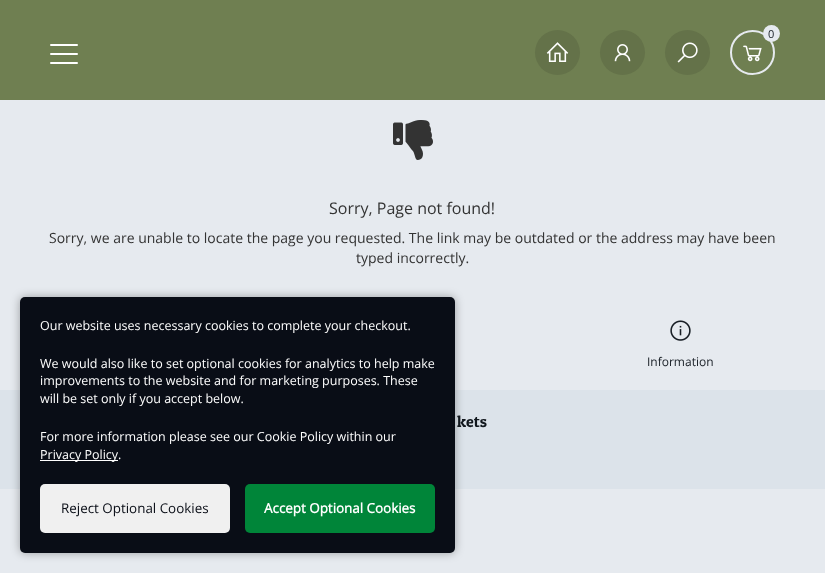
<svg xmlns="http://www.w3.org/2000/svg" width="825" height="573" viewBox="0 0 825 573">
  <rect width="100%" height="100%" fill="rgb(230,234,239)"/>
  <rect x="0" y="0" width="825" height="100" fill="rgb(111,127,81)"/>
  <circle cx="557.5" cy="52.5" r="22.5" fill="rgb(100,114,73)"/>
  <image x="546" y="42" width="23" height="20" href="pic1.png"/>
  <circle cx="622.5" cy="52.5" r="22.5" fill="rgb(100,114,73)"/>
  <image x="614" y="44" width="17" height="18" href="pic2.png"/>
  <circle cx="687.5" cy="52.5" r="22.5" fill="rgb(100,114,73)"/>
  <image x="677" y="42" width="21" height="21" href="pic3.png"/>
  <circle cx="752.5" cy="52.5" r="21.5" fill="none" stroke="rgb(230,234,239)" stroke-width="2"/>
  <image x="743" y="45" width="19" height="17" href="pic4.png"/>
  <circle cx="771.5" cy="33.5" r="8.5" fill="rgb(230,234,239)"/>
  <text x="768" y="38" font-family="Open Sans" font-size="11" fill="rgb(24,30,37)">0</text>
  <rect x="50" y="44" width="28" height="2" rx="1" fill="rgb(255,255,255)"/>
  <rect x="50" y="53" width="28" height="2" rx="1" fill="rgb(255,255,255)"/>
  <rect x="50" y="62" width="28" height="2" rx="1" fill="rgb(255,255,255)"/>
  <image x="393" y="120" width="40" height="40" href="pic5.png"/>
  <text x="329" y="214" font-family="Open Sans" font-size="16" fill="rgb(51,51,51)">Sorry, Page not found!</text>
  <g font-family="Open Sans" font-size="14" fill="rgb(51,51,51)">
    <text x="49" y="243">Sorry, we are unable to locate the page you requested. The link may be outdated or the address may have been</text>
    <text x="356" y="263">typed incorrectly.</text>
  </g>
  <rect x="0" y="390" width="825" height="99" fill="rgb(220,227,234)"/>
  <rect x="20" y="297" width="435" height="256" rx="5" fill="rgba(0,0,0,0.33)" filter="blur(5px)"/>
  <rect x="20" y="297" width="435" height="256" rx="5" fill="rgb(9,13,22)"/>
  <g font-family="Open Sans" font-size="12.5" fill="rgb(255,255,255)">
    <text x="40" y="330">Our website uses necessary cookies to complete your checkout.</text>
    <text>
      <tspan x="40" y="368">We would also like to set optional cookies for analytics to help make</tspan>
      <tspan x="40" y="385">improvements to the website and for marketing purposes. These</tspan>
      <tspan x="40" y="403">will be set only if you accept below.</tspan>
    </text>
    <text x="40" y="441">For more information please see our Cookie Policy within our</text>
  </g>
  <rect x="40" y="460" width="78" height="1" fill="rgb(255,255,255)"/>
  <text x="40" y="459" font-family="Open Sans" font-size="12.5" fill="rgb(255,255,255)">Privacy Policy.</text>
  <rect x="40" y="484" width="190" height="49" rx="5" fill="rgb(240,240,240)"/>
  <text x="61" y="513" font-family="Open Sans" font-size="13.4" fill="rgb(9,13,22)">Reject Optional Cookies</text>
  <rect x="245" y="484" width="190" height="49" rx="5" fill="rgb(0,133,57)"/>
  <text x="264" y="513" font-family="Open Sans" font-size="13.4" font-weight="bold" fill="rgb(255,255,255)">Accept Optional Cookies</text>
  <image x="670" y="320" width="21" height="21" href="pic6.png"/>
  <text x="647" y="366" font-family="Open Sans" font-size="12" fill="rgb(24,30,37)">Information</text>
  <text x="457" y="427" font-family="Patua One" font-size="16" fill="rgb(17,23,29)">kets</text>
</svg>
